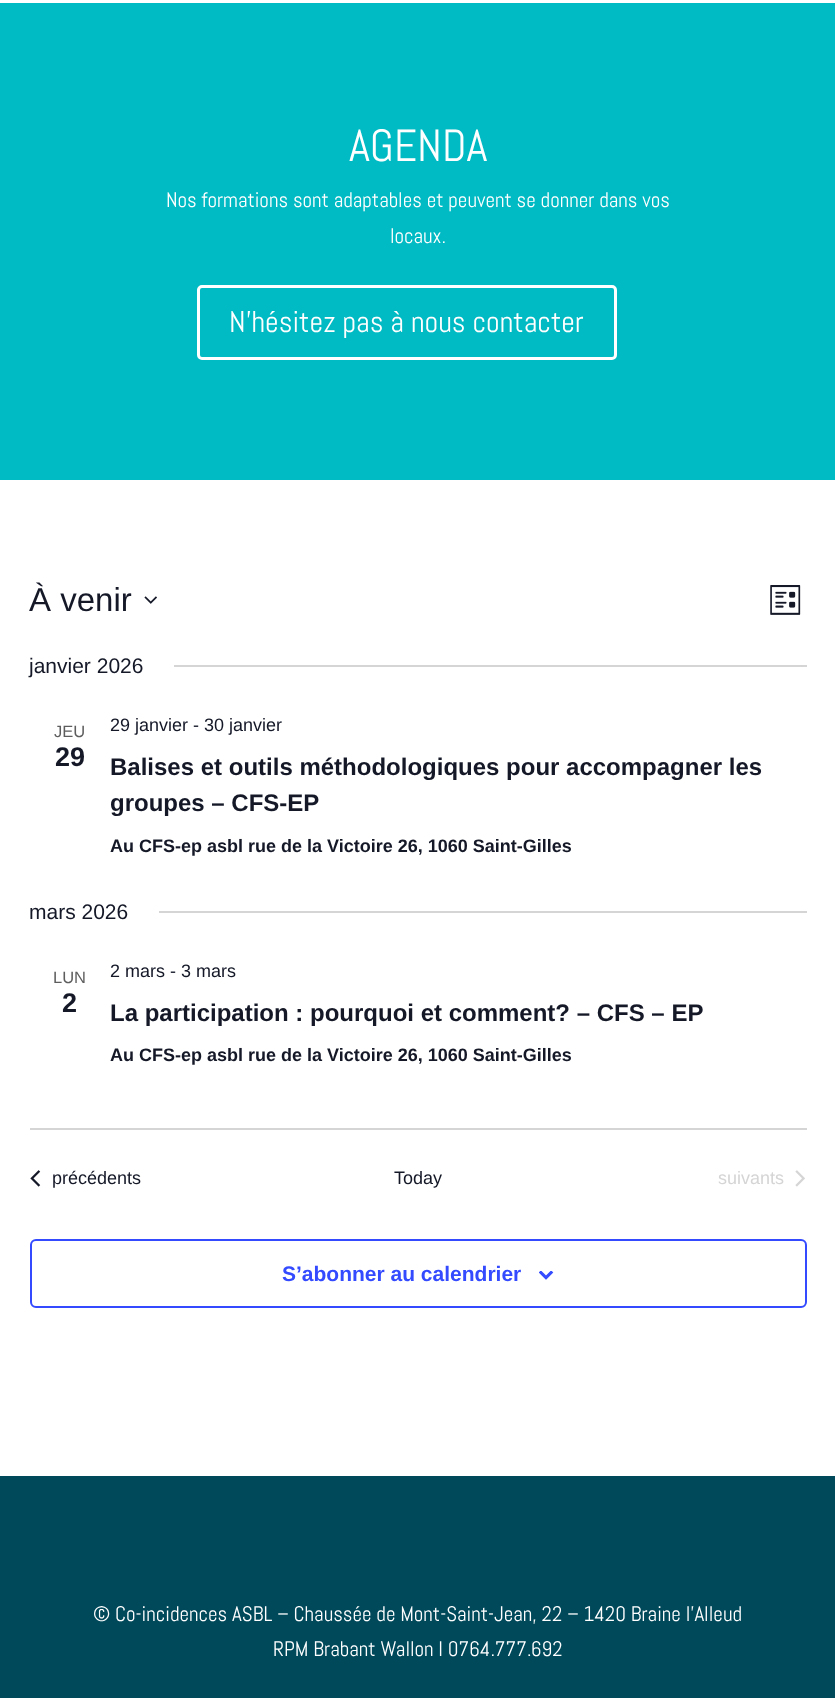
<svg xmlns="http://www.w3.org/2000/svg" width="835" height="1698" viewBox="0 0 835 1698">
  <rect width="100%" height="100%" fill="rgb(255,255,255)"/>
  <rect x="0" y="3" width="835" height="477" fill="rgb(0,186,196)"/>
  <text x="349" y="161" font-family="Abel" font-size="45" fill="rgb(255,255,255)">AGENDA</text>
  <g font-family="Abel" font-size="21" fill="rgb(255,255,255)">
    <text x="166" y="207">Nos formations sont adaptables et peuvent se donner dans vos</text>
    <text x="390" y="243">locaux.</text>
  </g>
  <rect x="198.5" y="286.5" width="417" height="72" rx="3.5" fill="none" stroke="rgb(255,255,255)" stroke-width="3"/>
  <text x="229" y="332" font-family="Abel" font-size="30" fill="rgb(255,255,255)">N'hésitez pas à nous contacter</text>
  <text x="29" y="611" font-family="Liberation Sans" font-size="33" fill="rgb(20,24,39)">À venir</text>
  <image x="144" y="596" width="13" height="8" href="pic1.png"/>
  <image x="770" y="585" width="31" height="30" href="pic2.png"/>
  <text x="29" y="673" font-family="Liberation Sans" font-size="21" fill="rgb(20,24,39)">janvier 2026</text>
  <rect x="174" y="665" width="633" height="2" fill="rgb(213,213,213)"/>
  <text x="54" y="737" font-family="Liberation Sans" font-size="16.5" fill="rgb(93,93,93)">JEU</text>
  <text x="55" y="766" font-family="Liberation Sans" font-size="27" font-weight="bold" fill="rgb(20,24,39)">29</text>
  <text x="110" y="731" font-family="Liberation Sans" font-size="18" fill="rgb(20,24,39)">29 janvier - 30 janvier</text>
  <g font-family="Liberation Sans" font-size="24" font-weight="bold" fill="rgb(20,24,39)">
    <text>
      <tspan x="110" y="775">Balises et outils méthodologiques pour accompagner les</tspan>
      <tspan x="110" y="811">groupes – CFS-EP</tspan>
    </text>
  </g>
  <text x="110" y="852" font-family="Liberation Sans" font-size="18" font-weight="bold" fill="rgb(20,24,39)">Au CFS-ep asbl rue de la Victoire 26, 1060 Saint-Gilles</text>
  <text x="29" y="919" font-family="Liberation Sans" font-size="21" fill="rgb(20,24,39)">mars 2026</text>
  <rect x="159" y="911" width="648" height="2" fill="rgb(213,213,213)"/>
  <text x="53" y="983" font-family="Liberation Sans" font-size="16.5" fill="rgb(93,93,93)">LUN</text>
  <text x="62" y="1012" font-family="Liberation Sans" font-size="27" font-weight="bold" fill="rgb(20,24,39)">2</text>
  <text x="110" y="977" font-family="Liberation Sans" font-size="18" fill="rgb(20,24,39)">2 mars - 3 mars</text>
  <text x="110" y="1021" font-family="Liberation Sans" font-size="24" font-weight="bold" fill="rgb(20,24,39)">La participation : pourquoi et comment? – CFS – EP</text>
  <text x="110" y="1061" font-family="Liberation Sans" font-size="18" font-weight="bold" fill="rgb(20,24,39)">Au CFS-ep asbl rue de la Victoire 26, 1060 Saint-Gilles</text>
  <rect x="30" y="1128" width="777" height="2" fill="rgb(213,213,213)"/>
  <image x="30" y="1170" width="11" height="17" href="pic3.png"/>
  <g font-family="Liberation Sans" font-size="18" fill="rgb(20,24,39)">
    <text x="52" y="1184">précédents</text>
    <text x="394" y="1184">Today</text>
  </g>
  <text x="718" y="1184" font-family="Liberation Sans" font-size="18" fill="rgb(213,213,213)">suivants</text>
  <image x="795" y="1170" width="10" height="17" href="pic4.png"/>
  <rect x="31" y="1240" width="775" height="67" rx="5" fill="none" stroke="rgb(51,74,255)" stroke-width="2"/>
  <text x="282" y="1281" font-family="Liberation Sans" font-size="21" font-weight="bold" fill="rgb(51,74,255)">S’abonner au calendrier</text>
  <image x="539" y="1271" width="15" height="9" href="pic5.png"/>
  <rect x="0" y="1476" width="835" height="222" fill="rgb(0,73,91)"/>
  <g font-family="Abel" font-size="21" fill="rgb(255,255,255)">
    <text x="93" y="1621">© Co-incidences ASBL – Chaussée de Mont-Saint-Jean, 22 – 1420 Braine l’Alleud</text>
    <text x="273" y="1656">RPM Brabant Wallon I 0764.777.692</text>
  </g>
</svg>
